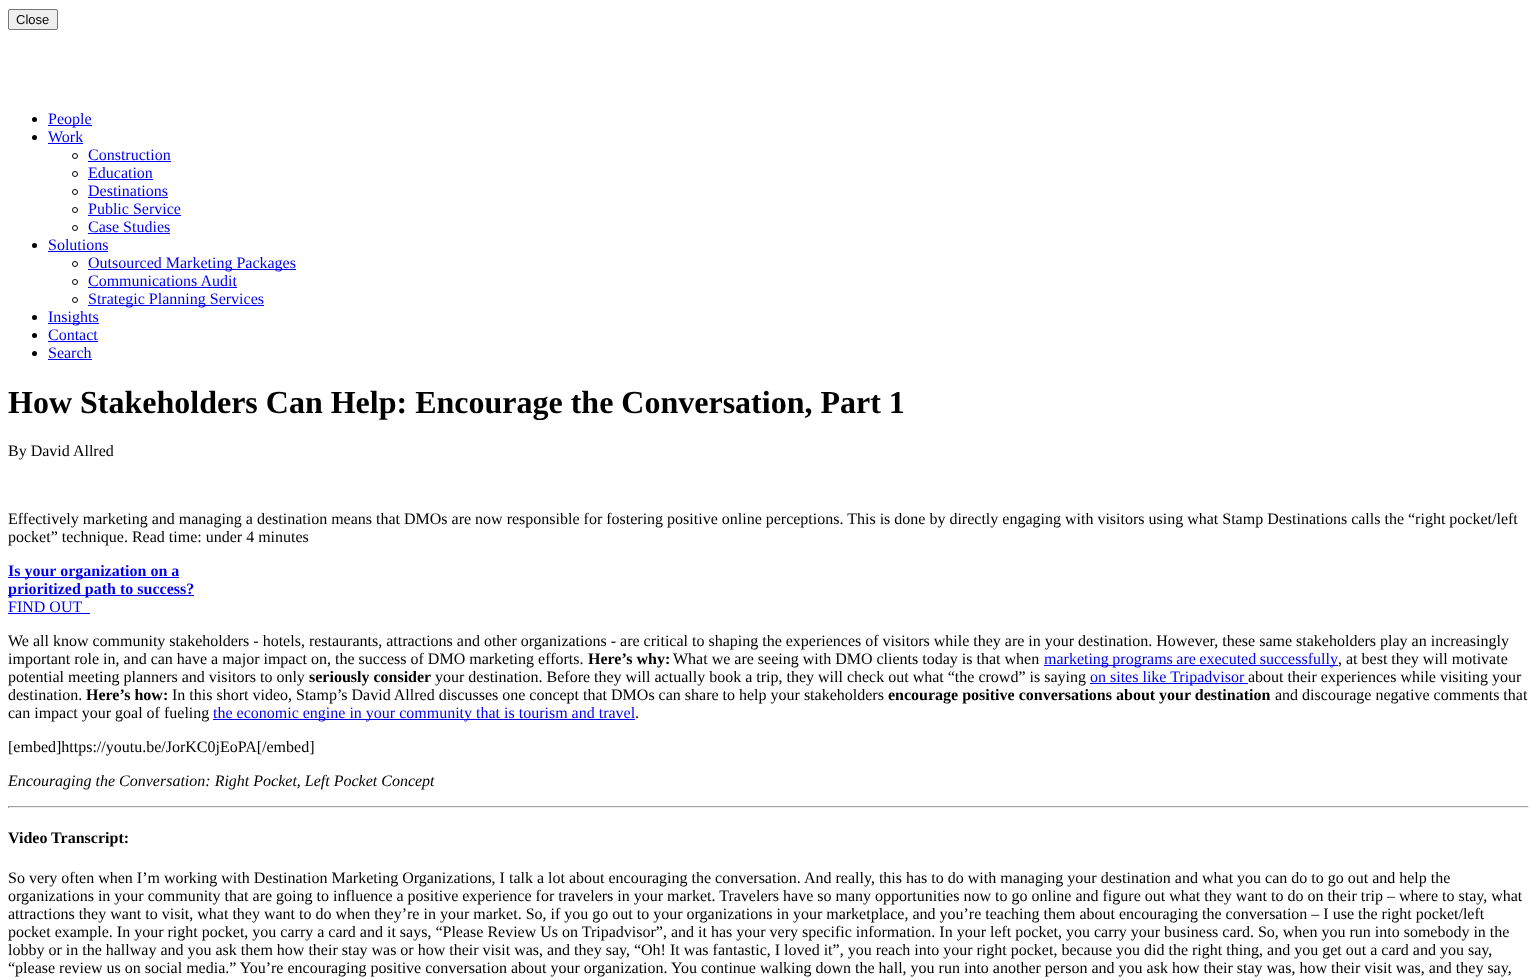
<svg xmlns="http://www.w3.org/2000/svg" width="1537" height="980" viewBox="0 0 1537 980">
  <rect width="100%" height="100%" fill="rgb(255,255,255)"/>
  <rect x="8.5" y="9.5" width="49" height="20" rx="1.5" fill="rgb(239,239,239)" stroke="rgb(118,118,118)"/>
  <text x="16" y="24" font-family="Liberation Sans" font-size="13" fill="rgb(0,0,0)">Close</text>
  <circle cx="34.5" cy="119.5" r="2.5" fill="rgb(0,0,0)"/>
  <rect x="48" y="125" width="44" height="1" fill="rgb(0,0,238)"/>
  <text x="48" y="124" font-family="Liberation Serif" font-size="16" fill="rgb(0,0,238)">People</text>
  <circle cx="34.5" cy="137.5" r="2.5" fill="rgb(0,0,0)"/>
  <text x="48" y="142" font-family="Liberation Serif" font-size="16" fill="rgb(0,0,238)">Work</text>
  <rect x="48" y="143" width="35" height="1" fill="rgb(0,0,238)"/>
  <circle cx="75" cy="156" r="2.5" fill="none" stroke="rgb(0,0,0)"/>
  <text x="88" y="160" font-family="Liberation Serif" font-size="16" fill="rgb(0,0,238)">Construction</text>
  <rect x="88" y="161" width="83" height="1" fill="rgb(0,0,238)"/>
  <circle cx="75" cy="174" r="2.5" fill="none" stroke="rgb(0,0,0)"/>
  <text x="88" y="178" font-family="Liberation Serif" font-size="16" fill="rgb(0,0,238)">Education</text>
  <rect x="88" y="179" width="65" height="1" fill="rgb(0,0,238)"/>
  <circle cx="75" cy="192" r="2.5" fill="none" stroke="rgb(0,0,0)"/>
  <text x="88" y="196" font-family="Liberation Serif" font-size="16" fill="rgb(0,0,238)">Destinations</text>
  <rect x="88" y="197" width="80" height="1" fill="rgb(0,0,238)"/>
  <circle cx="75" cy="210" r="2.5" fill="none" stroke="rgb(0,0,0)"/>
  <text x="88" y="214" font-family="Liberation Serif" font-size="16" fill="rgb(0,0,238)">Public Service</text>
  <rect x="88" y="215" width="93" height="1" fill="rgb(0,0,238)"/>
  <circle cx="75" cy="228" r="2.5" fill="none" stroke="rgb(0,0,0)"/>
  <text x="88" y="232" font-family="Liberation Serif" font-size="16" fill="rgb(0,0,238)">Case Studies</text>
  <rect x="88" y="233" width="82" height="1" fill="rgb(0,0,238)"/>
  <circle cx="34.5" cy="245.5" r="2.5" fill="rgb(0,0,0)"/>
  <text x="48" y="250" font-family="Liberation Serif" font-size="16" fill="rgb(0,0,238)">Solutions</text>
  <rect x="48" y="251" width="60" height="1" fill="rgb(0,0,238)"/>
  <circle cx="75" cy="264" r="2.5" fill="none" stroke="rgb(0,0,0)"/>
  <rect x="88" y="269" width="208" height="1" fill="rgb(0,0,238)"/>
  <text x="88" y="268" font-family="Liberation Serif" font-size="16" fill="rgb(0,0,238)">Outsourced Marketing Packages</text>
  <circle cx="75" cy="282" r="2.5" fill="none" stroke="rgb(0,0,0)"/>
  <text x="88" y="286" font-family="Liberation Serif" font-size="16" fill="rgb(0,0,238)">Communications Audit</text>
  <rect x="88" y="287" width="149" height="1" fill="rgb(0,0,238)"/>
  <circle cx="75" cy="300" r="2.5" fill="none" stroke="rgb(0,0,0)"/>
  <rect x="88" y="305" width="176" height="1" fill="rgb(0,0,238)"/>
  <text x="88" y="304" font-family="Liberation Serif" font-size="16" fill="rgb(0,0,238)">Strategic Planning Services</text>
  <circle cx="34.5" cy="317.5" r="2.5" fill="rgb(0,0,0)"/>
  <rect x="48" y="323" width="51" height="1" fill="rgb(0,0,238)"/>
  <text x="48" y="322" font-family="Liberation Serif" font-size="16" fill="rgb(0,0,238)">Insights</text>
  <circle cx="34.5" cy="335.5" r="2.5" fill="rgb(0,0,0)"/>
  <text x="48" y="340" font-family="Liberation Serif" font-size="16" fill="rgb(0,0,238)">Contact</text>
  <rect x="48" y="341" width="50" height="1" fill="rgb(0,0,238)"/>
  <circle cx="34.5" cy="353.5" r="2.5" fill="rgb(0,0,0)"/>
  <text x="48" y="358" font-family="Liberation Serif" font-size="16" fill="rgb(0,0,238)">Search</text>
  <rect x="48" y="359" width="44" height="1" fill="rgb(0,0,238)"/>
  <text x="8" y="413" font-family="Liberation Serif" font-size="32" font-weight="bold" fill="rgb(0,0,0)">How Stakeholders Can Help: Encourage the Conversation, Part 1</text>
  <g font-family="Liberation Serif" font-size="16" fill="rgb(0,0,0)">
    <text x="8" y="456">By David Allred</text>
    <text>
      <tspan x="8" y="524">Effectively marketing and managing a destination means that DMOs are now responsible for fostering positive online perceptions. This is done by directly engaging with visitors using what Stamp Destinations calls the “right pocket/left</tspan>
      <tspan x="8" y="542">pocket” technique. Read time: under 4 minutes</tspan>
    </text>
  </g>
  <rect x="8" y="577" width="171" height="1" fill="rgb(0,0,238)"/>
  <text x="8" y="576" font-family="Liberation Serif" font-size="16" font-weight="bold" fill="rgb(0,0,238)">Is your organization on a</text>
  <rect x="8" y="595" width="186" height="1" fill="rgb(0,0,238)"/>
  <text x="8" y="594" font-family="Liberation Serif" font-size="16" font-weight="bold" fill="rgb(0,0,238)">prioritized path to success?</text>
  <text x="8" y="612" font-family="Liberation Serif" font-size="16" fill="rgb(0,0,238)">FIND OUT</text>
  <rect x="8" y="613" width="82" height="1" fill="rgb(0,0,238)"/>
  <g font-family="Liberation Serif" font-size="16" fill="rgb(0,0,0)">
    <text>
      <tspan x="8" y="646">We all know community stakeholders - hotels, restaurants, attractions and other organizations - are critical to shaping the experiences of visitors while they are in your destination. However, these same stakeholders play an increasingly</tspan>
      <tspan x="8" y="664">important role in, and can have a major impact on, the success of DMO marketing efforts.</tspan>
    </text>
  </g>
  <text x="588" y="664" font-family="Liberation Serif" font-size="16" font-weight="bold" fill="rgb(0,0,0)">Here’s why:</text>
  <text x="673" y="664" font-family="Liberation Serif" font-size="16" fill="rgb(0,0,0)">What we are seeing with DMO clients today is that when</text>
  <rect x="1044" y="665" width="294" height="1" fill="rgb(0,0,238)"/>
  <text x="1044" y="664" word-spacing="-0.5" font-family="Liberation Serif" font-size="16" fill="rgb(0,0,238)">marketing programs are executed successfully</text>
  <g font-family="Liberation Serif" font-size="16" fill="rgb(0,0,0)">
    <text x="1338" y="664">, at best they will motivate</text>
    <text x="8" y="682">potential meeting planners and visitors to only</text>
  </g>
  <text x="309" y="682" font-family="Liberation Serif" font-size="16" font-weight="bold" fill="rgb(0,0,0)">seriously consider</text>
  <text x="435" y="682" font-family="Liberation Serif" font-size="16" fill="rgb(0,0,0)">your destination. Before they will actually book a trip, they will check out what “the crowd” is saying</text>
  <rect x="1090" y="683" width="158" height="1" fill="rgb(0,0,238)"/>
  <text x="1090" y="682" font-family="Liberation Serif" font-size="16" fill="rgb(0,0,238)">on sites like Tripadvisor</text>
  <g font-family="Liberation Serif" font-size="16" fill="rgb(0,0,0)">
    <text x="1248" y="682">about their experiences while visiting your</text>
    <text x="8" y="700">destination.</text>
  </g>
  <text x="86" y="700" font-family="Liberation Serif" font-size="16" font-weight="bold" fill="rgb(0,0,0)">Here’s how:</text>
  <text x="172" y="700" font-family="Liberation Serif" font-size="16" fill="rgb(0,0,0)">In this short video, Stamp’s David Allred discusses one concept that DMOs can share to help your stakeholders</text>
  <text x="888" y="700" font-family="Liberation Serif" font-size="16" font-weight="bold" fill="rgb(0,0,0)">encourage positive conversations about your destination</text>
  <g font-family="Liberation Serif" font-size="16" fill="rgb(0,0,0)">
    <text x="1275" y="700">and discourage negative comments that</text>
    <text x="8" y="718">can impact your goal of fueling</text>
  </g>
  <rect x="213" y="719" width="422" height="1" fill="rgb(0,0,238)"/>
  <text x="213" y="718" font-family="Liberation Serif" font-size="16" fill="rgb(0,0,238)">the economic engine in your community that is tourism and travel</text>
  <g font-family="Liberation Serif" font-size="16" fill="rgb(0,0,0)">
    <text x="635" y="718">.</text>
    <text x="8" y="752">[embed]https://youtu.be/JorKC0jEoPA[/embed]</text>
  </g>
  <text x="8" y="786" font-family="Liberation Serif" font-size="16" font-style="italic" fill="rgb(0,0,0)">Encouraging the Conversation: Right Pocket, Left Pocket Concept</text>
  <rect x="8" y="806" width="1521" height="1" fill="rgb(159,159,159)"/>
  <rect x="1528" y="806" width="1" height="2" fill="rgb(238,238,238)"/>
  <rect x="8" y="807" width="1521" height="1" fill="rgb(238,238,238)"/>
  <rect x="8" y="806" width="1" height="2" fill="rgb(159,159,159)"/>
  <text x="8" y="843" font-family="Liberation Serif" font-size="16" font-weight="bold" fill="rgb(0,0,0)">Video Transcript:</text>
  <g font-family="Liberation Serif" font-size="16" fill="rgb(0,0,0)">
    <text>
      <tspan x="8" y="883">So very often when I’m working with Destination Marketing Organizations, I talk a lot about encouraging the conversation. And really, this has to do with managing your destination and what you can do to go out and help the</tspan>
      <tspan x="8" y="901">organizations in your community that are going to influence a positive experience for travelers in your market. Travelers have so many opportunities now to go online and figure out what they want to do on their trip – where to stay, what</tspan>
      <tspan x="8" y="919">attractions they want to visit, what they want to do when they’re in your market. So, if you go out to your organizations in your marketplace, and you’re teaching them about encouraging the conversation – I use the right pocket/left</tspan>
      <tspan x="8" y="937">pocket example. In your right pocket, you carry a card and it says, “Please Review Us on Tripadvisor”, and it has your very specific information. In your left pocket, you carry your business card. So, when you run into somebody in the</tspan>
      <tspan x="8" y="955">lobby or in the hallway and you ask them how their stay was or how their visit was, and they say, “Oh! It was fantastic, I loved it”, you reach into your right pocket, because you did the right thing, and you get out a card and you say,</tspan>
      <tspan x="8" y="973">“please review us on social media.” You’re encouraging positive conversation about your organization. You continue walking down the hall, you run into another person and you ask how their stay was, how their visit was, and they say,</tspan>
    </text>
  </g>
</svg>
